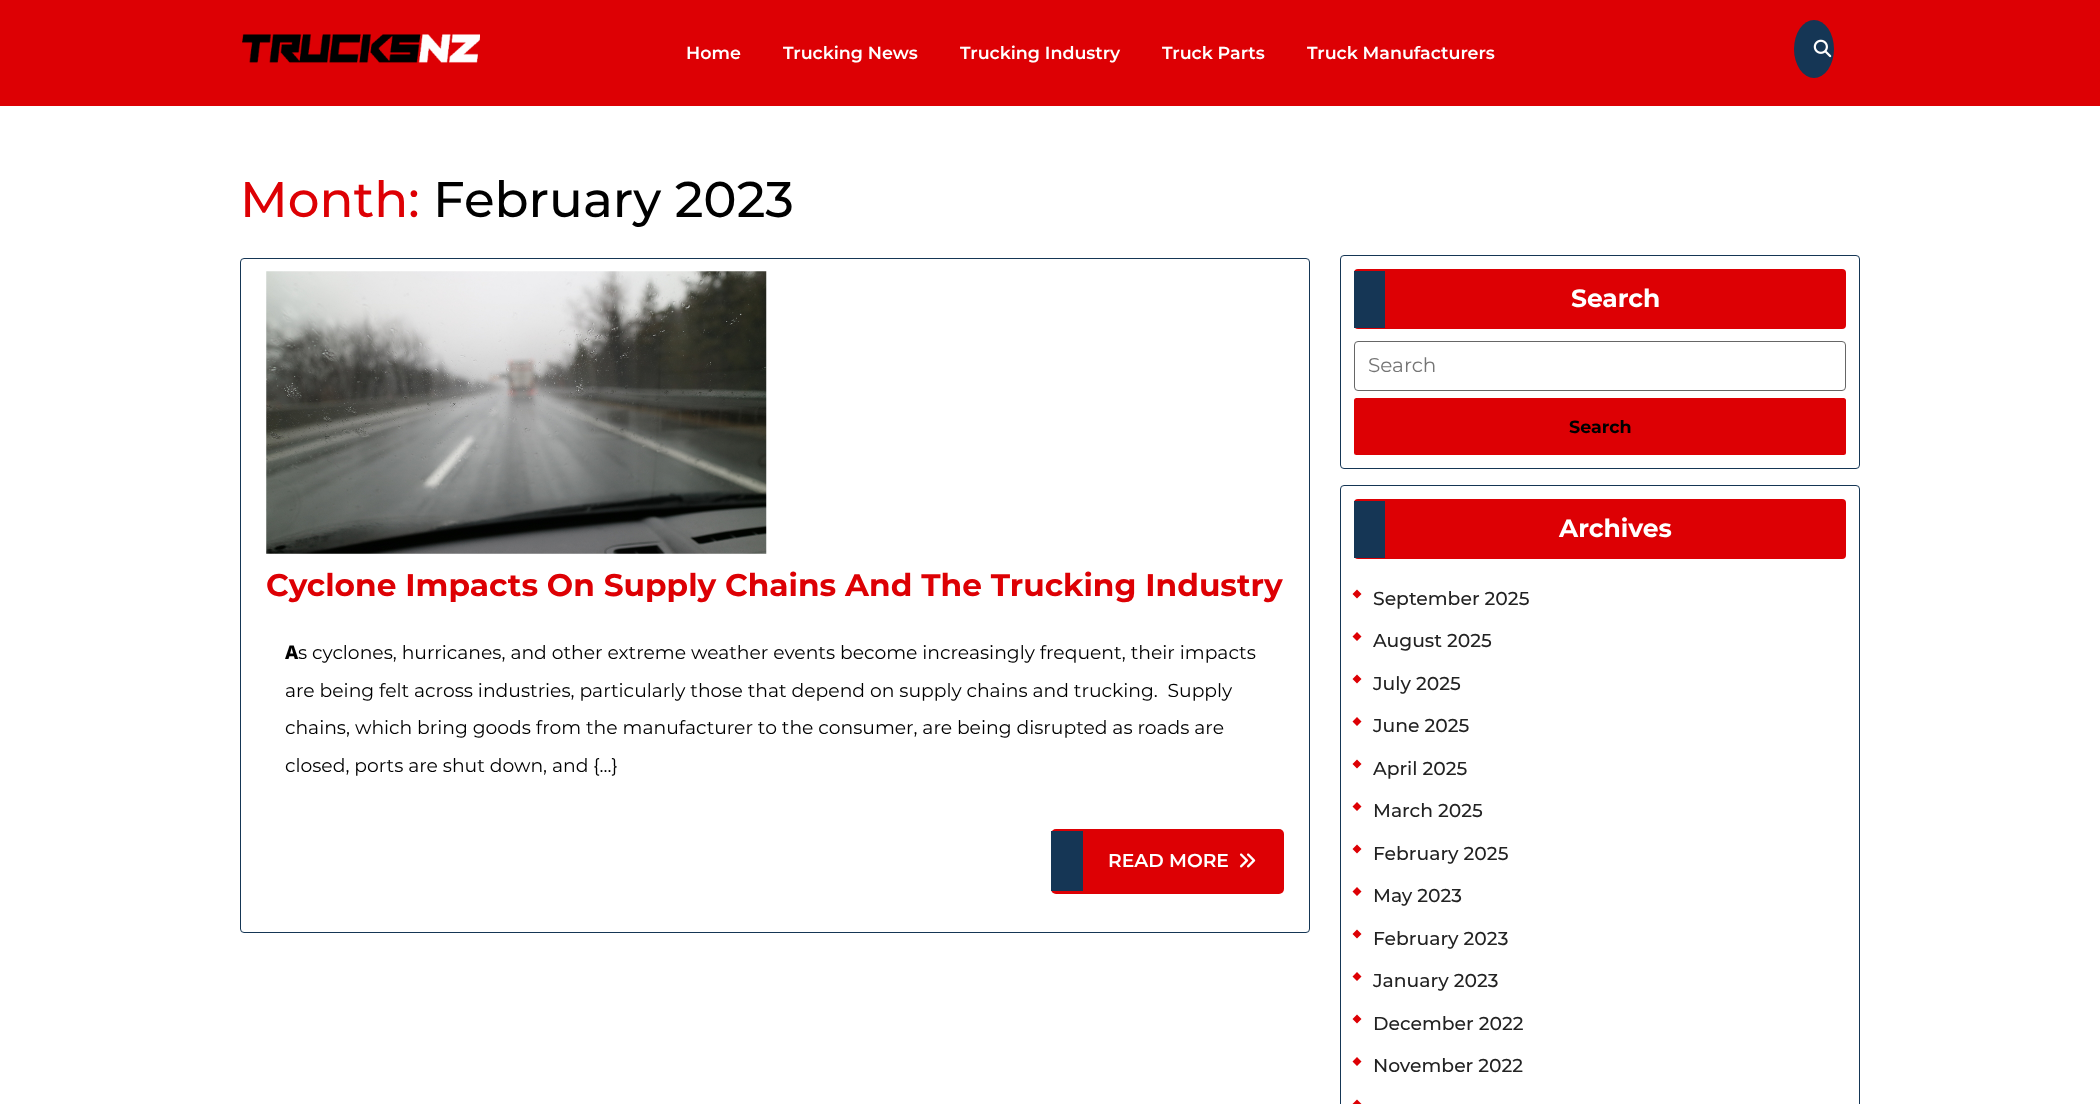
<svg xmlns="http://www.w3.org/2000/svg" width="2100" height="1104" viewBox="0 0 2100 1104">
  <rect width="100%" height="100%" fill="rgb(255,255,255)"/>
  <rect x="0" y="0" width="2100" height="106" fill="rgb(221,0,4)"/>
  <image x="242" y="34" width="238" height="29" href="pic1.png"/>
  <g font-family="Montserrat" font-size="17.5" font-weight="600" fill="rgb(255,255,255)">
    <text x="686" y="59">Home</text>
    <text x="783" y="59">Trucking News</text>
    <text x="960" y="59">Trucking Industry</text>
    <text x="1162" y="59">Truck Parts</text>
    <text x="1307" y="59">Truck Manufacturers</text>
  </g>
  <ellipse cx="1814" cy="49" rx="20" ry="29" fill="rgb(21,54,85)"/>
  <image x="1813" y="39" width="19" height="19" href="pic2.png"/>
  <text x="240" y="217" font-family="Montserrat" font-size="50" font-weight="500" fill="rgb(221,0,4)">Month:</text>
  <text x="433" y="217" font-family="Montserrat" font-size="50" font-weight="500" fill="rgb(0,0,0)">February 2023</text>
  <rect x="240.5" y="258.5" width="1069" height="674" rx="3.5" fill="none" stroke="rgb(21,54,85)"/>
  <image x="266" y="271" width="501" height="283" href="pic3.png"/>
  <text x="266" y="596" font-family="Montserrat" font-size="31.25" font-weight="bold" fill="rgb(221,0,4)">Cyclone Impacts On Supply Chains And The Trucking Industry</text>
  <text x="285" y="659" font-family="Noto Sans" font-size="18.75" font-weight="800" fill="rgb(0,0,0)">A</text>
  <g font-family="Montserrat" font-size="18.75" fill="rgb(0,0,0)">
    <text x="298" y="659">s cyclones, hurricanes, and other extreme weather events become increasingly frequent, their impacts</text>
    <text xml:space="preserve"><tspan x="285" y="697">are being felt across industries, particularly those that depend on supply chains and trucking.  Supply</tspan><tspan x="285" y="734">chains, which bring goods from the manufacturer to the consumer, are being disrupted as roads are</tspan></text>
    <text x="285" y="772">closed, ports are shut down, and {...}</text>
  </g>
  <rect x="1051" y="829" width="233" height="65" rx="5" fill="rgb(221,0,4)"/>
  <rect x="1051" y="831" width="32" height="60" fill="rgb(21,54,85)"/>
  <text x="1108" y="867" font-family="Montserrat" font-size="18.75" font-weight="600" fill="rgb(255,255,255)">READ MORE</text>
  <image x="1239" y="853" width="17" height="15" href="pic4.png"/>
  <rect x="1340.5" y="255.5" width="519" height="213" rx="3.5" fill="none" stroke="rgb(21,54,85)"/>
  <rect x="1354" y="269" width="492" height="60" rx="4" fill="rgb(221,0,4)"/>
  <rect x="1354" y="271" width="31" height="57" fill="rgb(21,54,85)"/>
  <text x="1571" y="307" font-family="Montserrat" font-size="25" font-weight="bold" fill="rgb(255,255,255)">Search</text>
  <rect x="1354.5" y="341.5" width="491" height="49" rx="3.5" fill="none" stroke="rgb(102,102,102)"/>
  <text x="1368" y="372" font-family="Montserrat" font-size="20" fill="rgb(117,117,117)">Search</text>
  <rect x="1354" y="398" width="492" height="57" rx="2.5" fill="rgb(221,0,4)"/>
  <text x="1569" y="433" font-family="Montserrat" font-size="17.5" font-weight="bold" fill="rgb(0,0,0)">Search</text>
  <rect x="1340.5" y="485.5" width="519" height="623" rx="3.5" fill="none" stroke="rgb(21,54,85)"/>
  <rect x="1354" y="499" width="492" height="60" rx="4" fill="rgb(221,0,4)"/>
  <rect x="1354" y="501" width="31" height="57" fill="rgb(21,54,85)"/>
  <text x="1559" y="537" font-family="Montserrat" font-size="25" font-weight="bold" fill="rgb(255,255,255)">Archives</text>
  <path d="M1357 589.5L1361.5 594L1357 598.5L1352.5 594ZM1357 632L1361.5 636.5L1357 641L1352.5 636.5Z" fill="rgb(221,0,4)"/>
  <g font-family="Montserrat" font-size="18.75" font-weight="500" fill="rgb(34,34,34)">
    <text x="1373" y="605">September 2025</text>
    <text x="1373" y="647">August 2025</text>
  </g>
  <path d="M1357 674.5L1361.5 679L1357 683.5L1352.5 679ZM1357 717L1361.5 721.5L1357 726L1352.5 721.5Z" fill="rgb(221,0,4)"/>
  <g font-family="Montserrat" font-size="18.75" font-weight="500" fill="rgb(34,34,34)">
    <text x="1373" y="690">July 2025</text>
    <text x="1373" y="732">June 2025</text>
  </g>
  <path d="M1357 759.5L1361.5 764L1357 768.5L1352.5 764ZM1357 802L1361.5 806.5L1357 811L1352.5 806.5Z" fill="rgb(221,0,4)"/>
  <g font-family="Montserrat" font-size="18.75" font-weight="500" fill="rgb(34,34,34)">
    <text x="1373" y="775">April 2025</text>
    <text x="1373" y="817">March 2025</text>
  </g>
  <path d="M1357 844.5L1361.5 849L1357 853.5L1352.5 849ZM1357 887L1361.5 891.5L1357 896L1352.5 891.5Z" fill="rgb(221,0,4)"/>
  <g font-family="Montserrat" font-size="18.75" font-weight="500" fill="rgb(34,34,34)">
    <text x="1373" y="860">February 2025</text>
    <text x="1373" y="902">May 2023</text>
  </g>
  <path d="M1357 929.5L1361.5 934L1357 938.5L1352.5 934ZM1357 972L1361.5 976.5L1357 981L1352.5 976.5Z" fill="rgb(221,0,4)"/>
  <g font-family="Montserrat" font-size="18.75" font-weight="500" fill="rgb(34,34,34)">
    <text x="1373" y="945">February 2023</text>
    <text x="1373" y="987">January 2023</text>
  </g>
  <path d="M1357 1014.5L1361.5 1019L1357 1023.5L1352.5 1019ZM1357 1057L1361.5 1061.5L1357 1066L1352.5 1061.5Z" fill="rgb(221,0,4)"/>
  <g font-family="Montserrat" font-size="18.75" font-weight="500" fill="rgb(34,34,34)">
    <text x="1373" y="1030">December 2022</text>
    <text x="1373" y="1072">November 2022</text>
  </g>
  <path d="M1357 1099.5L1361.5 1104L1357 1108.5L1352.5 1104Z" fill="rgb(221,0,4)"/>
</svg>
